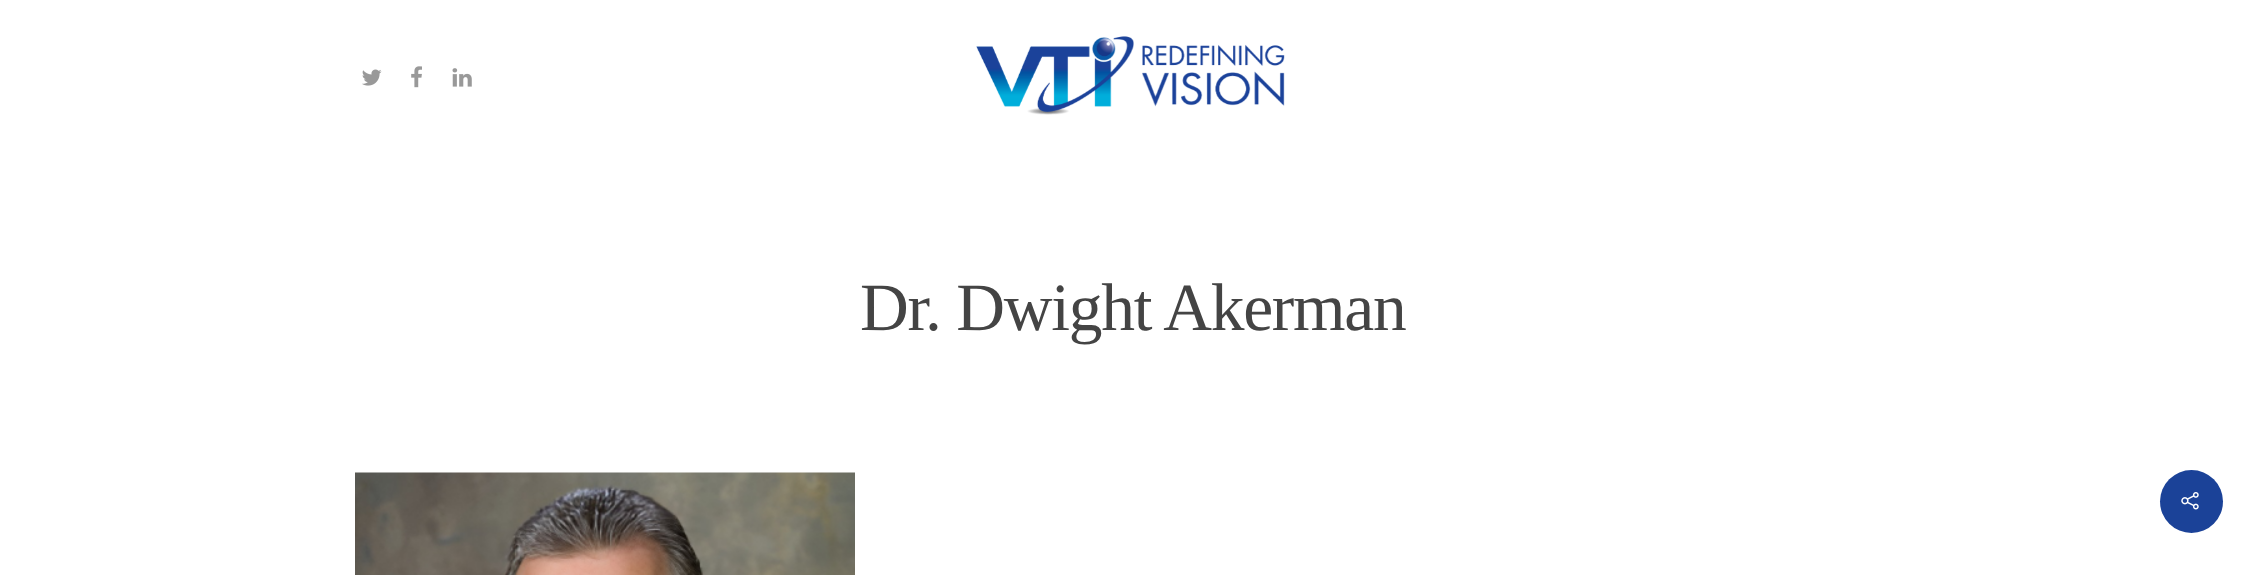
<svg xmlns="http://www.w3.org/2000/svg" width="2265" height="575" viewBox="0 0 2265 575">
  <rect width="100%" height="100%" fill="rgb(255,255,255)"/>
  <image x="362" y="69" width="20" height="17" href="pic1.png"/>
  <image x="411" y="66" width="11" height="22" href="pic2.png"/>
  <image x="452" y="68" width="20" height="19" href="pic3.png"/>
  <image x="976" y="36" width="309" height="79" href="pic4.png"/>
  <text x="860" y="330" font-family="Liberation Serif" font-size="67.5" letter-spacing="-1.25" fill="rgb(68,68,68)">Dr. Dwight Akerman</text>
  <image x="355" y="472" width="500" height="103" href="pic5.png"/>
  <circle cx="2191.5" cy="501.5" r="31.5" fill="rgb(27,66,152)"/>
  <image x="2181" y="492" width="18" height="18" href="pic6.png"/>
</svg>
